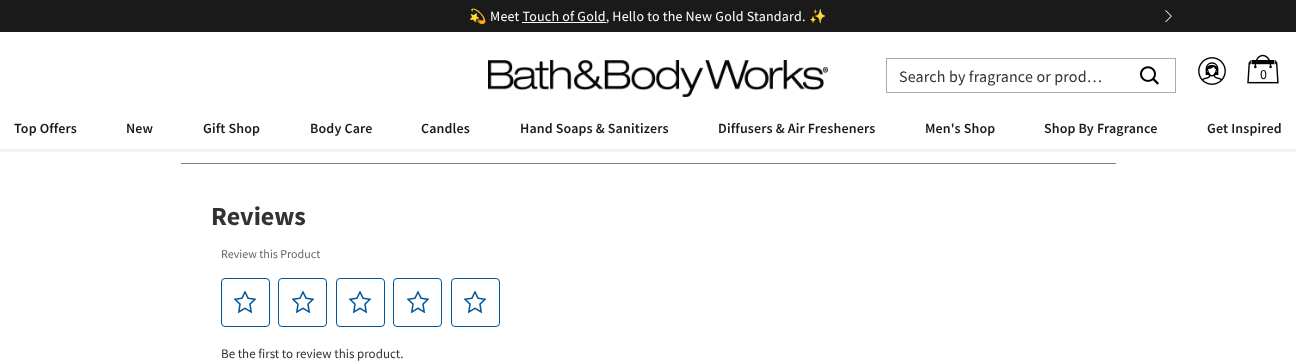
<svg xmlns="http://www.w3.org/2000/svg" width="1296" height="361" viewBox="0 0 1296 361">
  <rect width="100%" height="100%" fill="rgb(255,255,255)"/>
  <rect x="0" y="0" width="1296" height="32" fill="rgb(26,26,26)"/>
  <text x="469" y="21" font-family="Noto Color Emoji" font-size="14" letter-spacing="0.2" fill="rgb(255,255,255)">💫</text>
  <text x="490" y="21" font-family="Source Sans Pro" font-size="14" letter-spacing="0.2" fill="rgb(255,255,255)">Meet Touch of Gold, Hello to the New Gold Standard.</text>
  <rect x="522" y="22" width="84" height="1" fill="rgb(255,255,255)"/>
  <text x="809" y="21" font-family="Noto Color Emoji" font-size="14" letter-spacing="0.2" fill="rgb(255,255,255)">✨</text>
  <image x="1165" y="10" width="7" height="12" href="pic1.png"/>
  <rect x="0" y="149" width="1296" height="3" fill="rgb(242,242,242)"/>
  <image x="488" y="60" width="340" height="37" href="pic2.png"/>
  <rect x="886.5" y="58.5" width="289" height="34" fill="none" stroke="rgb(170,170,170)"/>
  <text x="899" y="82" font-family="Source Sans Pro" font-size="16" letter-spacing="0.15" fill="rgb(51,51,51)">Search by fragrance or prod…</text>
  <image x="1140" y="66" width="19" height="19" href="pic3.png"/>
  <image x="1198" y="57" width="28" height="28" href="pic4.png"/>
  <image x="1247" y="54" width="32" height="30" href="pic5.png"/>
  <text x="1260" y="79" font-family="Source Sans Pro" font-size="14" fill="rgb(0,0,0)">0</text>
  <g font-family="Source Sans Pro" font-size="14" font-weight="600" letter-spacing="0.15" fill="rgb(26,26,26)">
    <text x="14" y="133">Top Offers</text>
    <text x="126" y="133">New</text>
    <text x="203" y="133">Gift Shop</text>
    <text x="310" y="133">Body Care</text>
    <text x="421" y="133">Candles</text>
    <text x="520" y="133">Hand Soaps &amp; Sanitizers</text>
    <text x="718" y="133">Diffusers &amp; Air Fresheners</text>
    <text x="925" y="133">Men's Shop</text>
    <text x="1044" y="133">Shop By Fragrance</text>
    <text x="1207" y="133">Get Inspired</text>
  </g>
  <rect x="181" y="163" width="935" height="1" fill="rgb(130,130,130)"/>
  <text x="211" y="225" font-family="Source Sans Pro" font-size="26" font-weight="bold" fill="rgb(51,51,51)">Reviews</text>
  <text x="221" y="258" font-family="Source Sans Pro" font-size="12" fill="rgb(102,102,102)">Review this Product</text>
  <rect x="221.5" y="278.5" width="48" height="48" rx="3.5" fill="none" stroke="rgb(0,86,153)"/>
  <image x="234" y="291" width="22" height="22" href="pic6.png"/>
  <rect x="278.5" y="278.5" width="48" height="48" rx="3.5" fill="none" stroke="rgb(0,86,153)"/>
  <image x="292" y="291" width="22" height="22" href="pic6.png"/>
  <rect x="336.5" y="278.5" width="48" height="48" rx="3.5" fill="none" stroke="rgb(0,86,153)"/>
  <image x="349" y="291" width="22" height="22" href="pic6.png"/>
  <rect x="393.5" y="278.5" width="48" height="48" rx="3.5" fill="none" stroke="rgb(0,86,153)"/>
  <image x="407" y="291" width="22" height="22" href="pic6.png"/>
  <rect x="451.5" y="278.5" width="48" height="48" rx="3.5" fill="none" stroke="rgb(0,86,153)"/>
  <image x="464" y="291" width="22" height="22" href="pic6.png"/>
  <text x="221" y="358" font-family="Source Sans Pro" font-size="13" fill="rgb(51,51,51)">Be the first to review this product.</text>
</svg>
